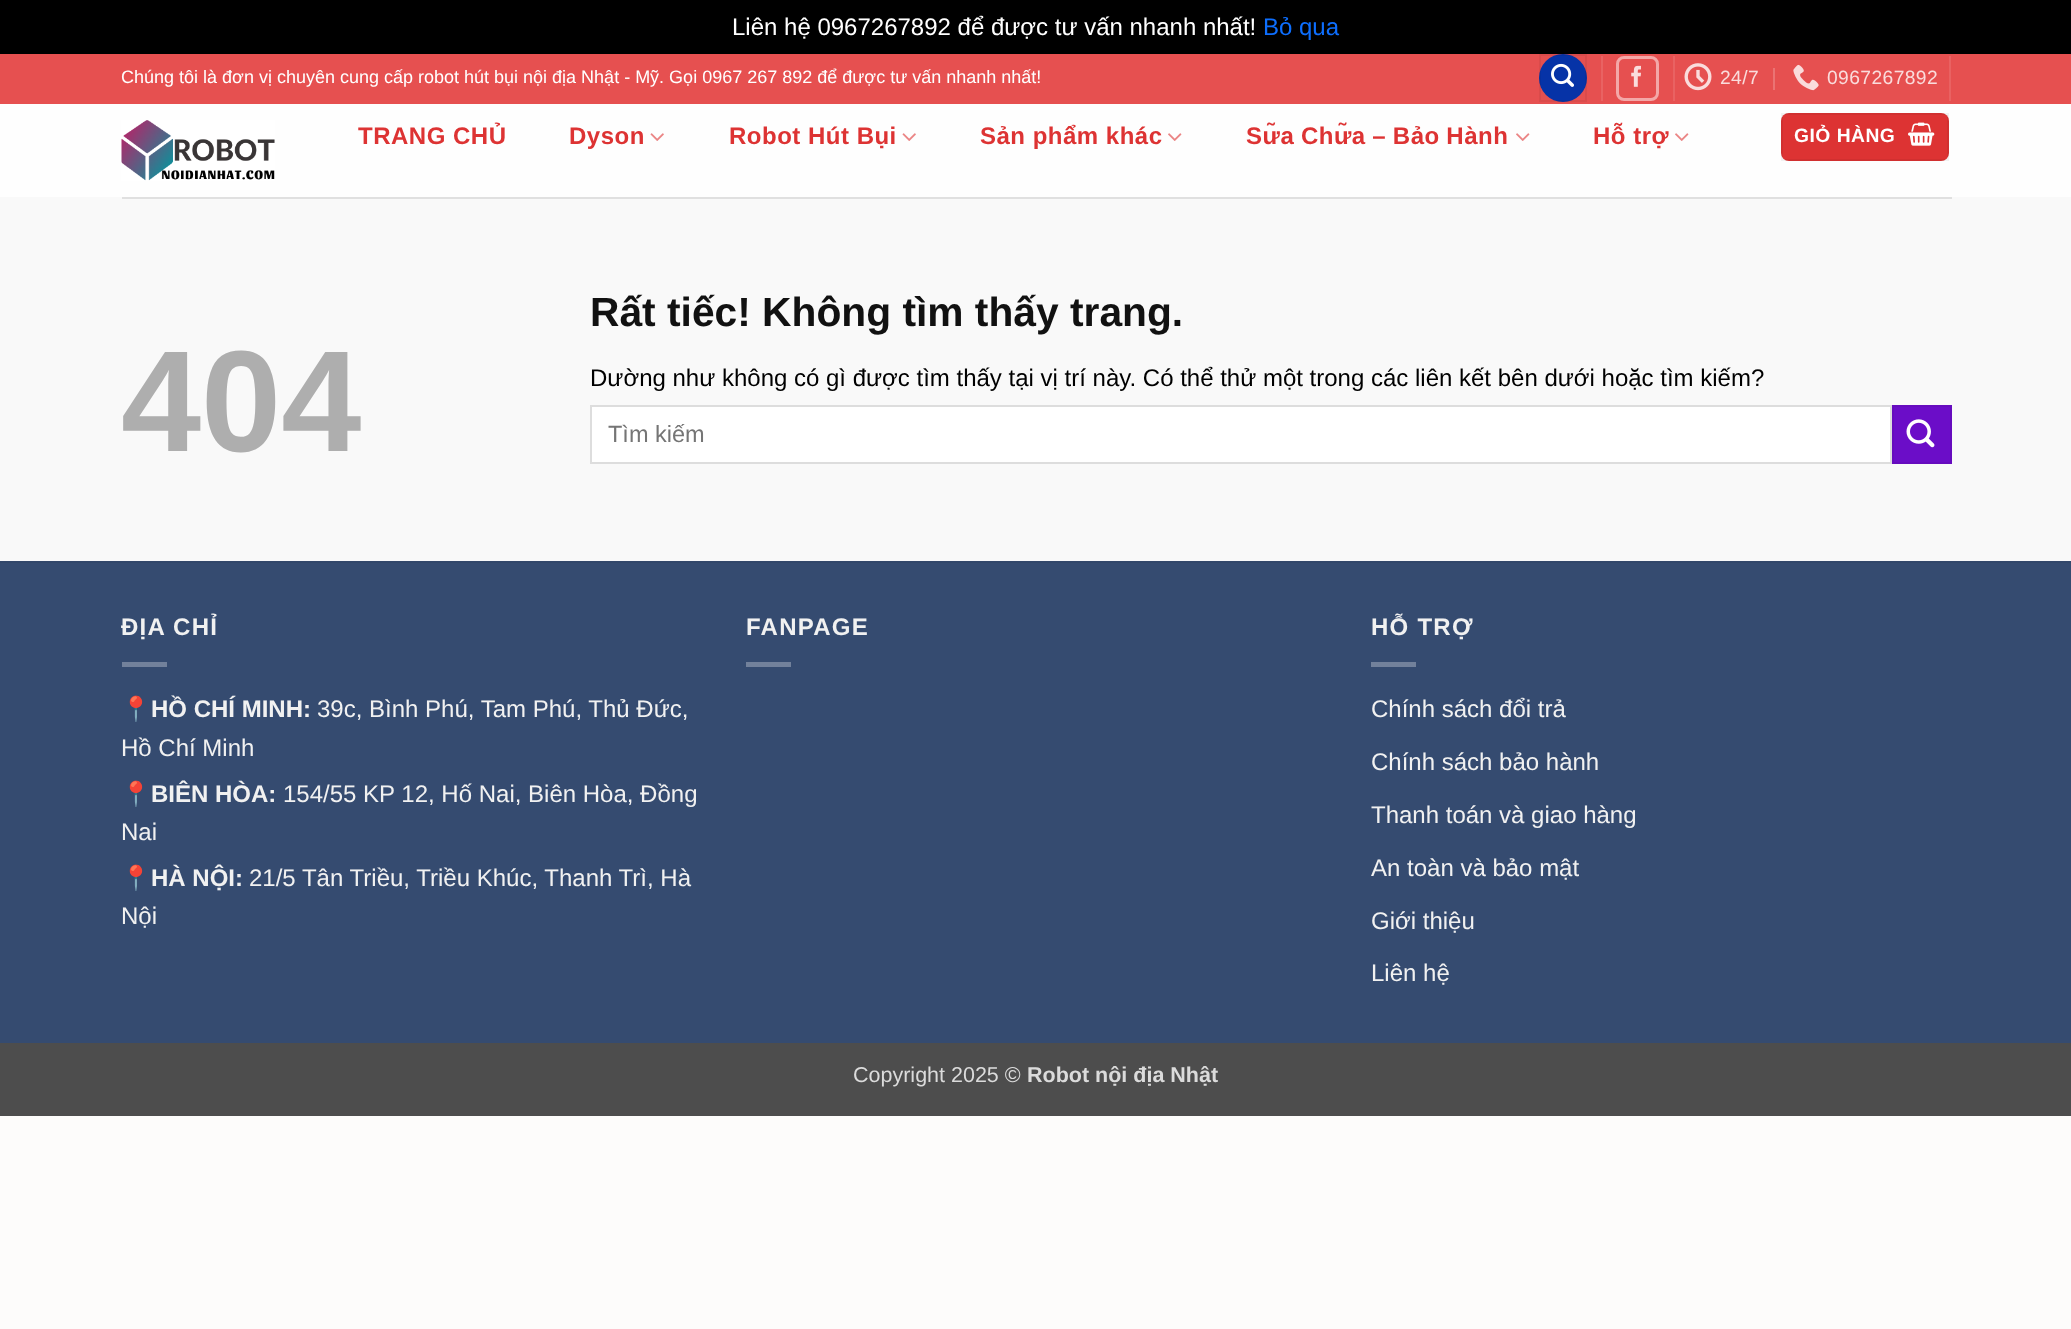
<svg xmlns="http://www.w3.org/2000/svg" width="2071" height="1329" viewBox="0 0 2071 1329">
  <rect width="100%" height="100%" fill="rgb(253,252,251)"/>
  <rect x="0" y="0" width="2071" height="54" fill="rgb(0,0,0)"/>
  <text x="732" y="35" font-family="Liberation Sans" font-size="24" fill="rgb(255,255,255)">Liên hệ 0967267892 để được tư vấn nhanh nhất!</text>
  <text x="1263" y="35" font-family="Liberation Sans" font-size="24" fill="rgb(13,110,253)">Bỏ qua</text>
  <rect x="0" y="197" width="2071" height="364" fill="rgb(249,249,249)"/>
  <rect x="0" y="54" width="2071" height="50" fill="rgb(230,80,80)"/>
  <text x="121" y="83" font-family="Liberation Sans" font-size="18" fill="rgb(255,255,255)">Chúng tôi là đơn vị chuyên cung cấp robot hút bụi nội địa Nhật - Mỹ. Gọi 0967 267 892 để được tư vấn nhanh nhất!</text>
  <circle cx="1563" cy="78" r="24" fill="rgb(6,51,167)"/>
  <rect x="1540" y="55" width="46" height="46" fill="none" stroke="rgba(0,0,0,0.05)" stroke-width="2"/>
  <image x="1551" y="63" width="23" height="24" href="pic1.png"/>
  <rect x="1601" y="56" width="2" height="45" fill="rgb(233,98,98)"/>
  <rect x="1617.5" y="57.5" width="40" height="42" rx="6.5" fill="none" stroke="rgb(243,168,168)" stroke-width="3"/>
  <image x="1631" y="65" width="10" height="22" href="pic2.png"/>
  <rect x="1673" y="56" width="2" height="45" fill="rgb(233,98,98)"/>
  <image x="1684" y="63" width="28" height="28" href="pic3.png"/>
  <text x="1720" y="84" font-family="Liberation Sans" font-size="19.25" letter-spacing="0.4" fill="rgb(250,220,220)">24/7</text>
  <rect x="1773" y="68" width="2" height="22" fill="rgb(235,115,115)"/>
  <image x="1793" y="64" width="26" height="27" href="pic4.png"/>
  <text x="1827" y="84" font-family="Liberation Sans" font-size="19.25" letter-spacing="0.4" fill="rgb(250,220,220)">0967267892</text>
  <rect x="1949" y="56" width="2" height="45" fill="rgb(233,98,98)"/>
  <rect x="0" y="104" width="2071" height="93" fill="rgb(254,254,254)"/>
  <image x="121" y="120" width="154" height="61" href="pic5.png"/>
  <g font-family="Liberation Sans" font-size="24" font-weight="bold" letter-spacing="0.5" fill="rgb(221,51,51)">
    <text x="358" y="144">TRANG CHỦ</text>
    <text x="569" y="144">Dyson</text>
  </g>
  <image x="650" y="133" width="14" height="8" href="pic6.png"/>
  <text x="729" y="144" font-family="Liberation Sans" font-size="24" font-weight="bold" letter-spacing="0.5" fill="rgb(221,51,51)">Robot Hút Bụi</text>
  <image x="902" y="133" width="14" height="8" href="pic6.png"/>
  <text x="980" y="144" font-family="Liberation Sans" font-size="24" font-weight="bold" letter-spacing="0.5" fill="rgb(221,51,51)">Sản phẩm khác</text>
  <image x="1168" y="133" width="14" height="8" href="pic7.png"/>
  <text x="1246" y="144" word-spacing="-0.5" font-family="Liberation Sans" font-size="24" font-weight="bold" letter-spacing="0.5" fill="rgb(221,51,51)">Sữa Chữa – Bảo Hành</text>
  <image x="1516" y="133" width="14" height="8" href="pic7.png"/>
  <text x="1593" y="144" font-family="Liberation Sans" font-size="24" font-weight="bold" letter-spacing="0.5" fill="rgb(221,51,51)">Hỗ trợ</text>
  <image x="1675" y="133" width="14" height="8" href="pic7.png"/>
  <rect x="1781" y="113" width="168" height="48" rx="8" fill="rgb(221,51,51)"/>
  <rect x="1782" y="114" width="166" height="46" fill="none" stroke="rgba(0,0,0,0.05)" stroke-width="2"/>
  <text x="1794" y="142" font-family="Liberation Sans" font-size="19.25" font-weight="bold" letter-spacing="0.5" fill="rgb(255,255,255)">GIỎ HÀNG</text>
  <image x="1908" y="122" width="27" height="24" href="pic8.png"/>
  <rect x="122" y="197" width="1830" height="2" fill="rgb(224,224,224)"/>
  <text x="121" y="451" font-family="Liberation Sans" font-size="144" font-weight="bold" fill="rgb(174,174,174)">404</text>
  <text x="590" y="326" font-family="Liberation Sans" font-size="40.75" font-weight="bold" fill="rgb(17,17,17)">Rất tiếc! Không tìm thấy trang.</text>
  <text x="590" y="386" font-family="Liberation Sans" font-size="24" fill="rgb(0,0,0)">Dường như không có gì được tìm thấy tại vị trí này. Có thể thử một trong các liên kết bên dưới hoặc tìm kiếm?</text>
  <rect x="591" y="406" width="1300" height="57" fill="rgb(255,255,255)" stroke="rgb(221,221,221)" stroke-width="2"/>
  <text x="608" y="442" font-family="Liberation Sans" font-size="23.5" fill="rgb(117,117,117)">Tìm kiếm</text>
  <rect x="1893" y="406" width="58" height="57" fill="rgb(107,13,200)" stroke="rgb(102,12,190)" stroke-width="2"/>
  <image x="1906" y="419" width="29" height="29" href="pic9.png"/>
  <rect x="0" y="563" width="2071" height="480" fill="rgb(53,75,112)"/>
  <rect x="0" y="561" width="2071" height="2" fill="rgb(50,71,106)"/>
  <text x="121" y="635" font-family="Liberation Sans" font-size="24" font-weight="bold" letter-spacing="1.25" fill="rgb(241,241,241)">ĐỊA CHỈ</text>
  <rect x="122" y="662" width="45" height="5" fill="rgb(114,129,155)"/>
  <text x="121" y="717" font-family="Noto Color Emoji" font-size="24" fill="rgb(241,241,241)">📍</text>
  <text x="151" y="717" font-family="Liberation Sans" font-size="24" font-weight="bold" fill="rgb(241,241,241)">HỒ CHÍ MINH:</text>
  <g font-family="Liberation Sans" font-size="24" fill="rgb(241,241,241)">
    <text x="317" y="717">39c, Bình Phú, Tam Phú, Thủ Đức,</text>
    <text x="121" y="756">Hồ Chí Minh</text>
  </g>
  <text x="121" y="802" font-family="Noto Color Emoji" font-size="24" fill="rgb(241,241,241)">📍</text>
  <text x="151" y="802" font-family="Liberation Sans" font-size="24" font-weight="bold" fill="rgb(241,241,241)">BIÊN HÒA:</text>
  <g font-family="Liberation Sans" font-size="24" fill="rgb(241,241,241)">
    <text x="283" y="802">154/55 KP 12, Hố Nai, Biên Hòa, Đồng</text>
    <text x="121" y="840">Nai</text>
  </g>
  <text x="121" y="886" font-family="Noto Color Emoji" font-size="24" fill="rgb(241,241,241)">📍</text>
  <text x="151" y="886" font-family="Liberation Sans" font-size="24" font-weight="bold" fill="rgb(241,241,241)">HÀ NỘI:</text>
  <g font-family="Liberation Sans" font-size="24" fill="rgb(241,241,241)">
    <text x="249" y="886">21/5 Tân Triều, Triều Khúc, Thanh Trì, Hà</text>
    <text x="121" y="924">Nội</text>
  </g>
  <text x="746" y="635" font-family="Liberation Sans" font-size="24" font-weight="bold" letter-spacing="1.25" fill="rgb(241,241,241)">FANPAGE</text>
  <rect x="746" y="662" width="45" height="5" fill="rgb(114,129,155)"/>
  <text x="1371" y="635" font-family="Liberation Sans" font-size="24" font-weight="bold" letter-spacing="1.25" fill="rgb(241,241,241)">HỖ TRỢ</text>
  <rect x="1371" y="662" width="45" height="5" fill="rgb(114,129,155)"/>
  <g font-family="Liberation Sans" font-size="24" fill="rgb(241,241,241)">
    <text x="1371" y="717">Chính sách đổi trả</text>
    <text x="1371" y="770">Chính sách bảo hành</text>
    <text x="1371" y="823">Thanh toán và giao hàng</text>
    <text x="1371" y="876">An toàn và bảo mật</text>
    <text x="1371" y="929">Giới thiệu</text>
    <text x="1371" y="981">Liên hệ</text>
  </g>
  <rect x="0" y="1043" width="2071" height="73" fill="rgb(77,77,77)"/>
  <text x="853" y="1082" font-family="Liberation Sans" font-size="21.5" fill="rgb(219,219,219)">Copyright 2025 ©</text>
  <text x="1027" y="1082" font-family="Liberation Sans" font-size="21.5" font-weight="bold" fill="rgb(219,219,219)">Robot nội địa Nhật</text>
</svg>
